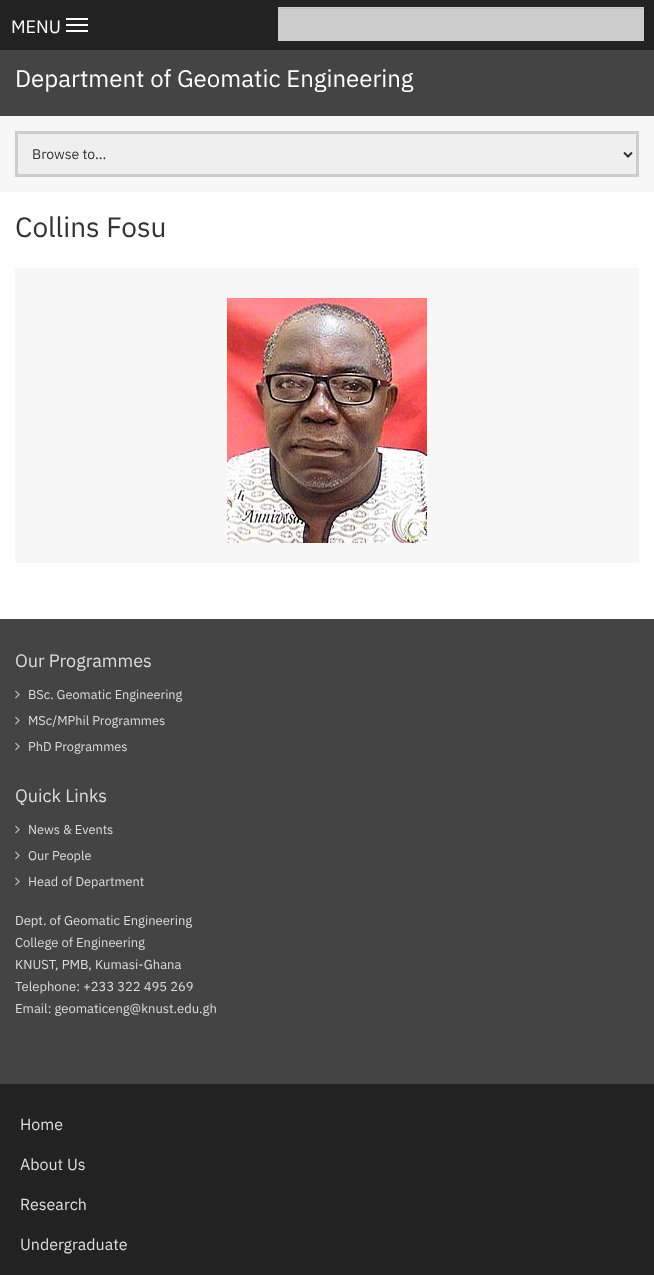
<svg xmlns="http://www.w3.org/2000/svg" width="654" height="1275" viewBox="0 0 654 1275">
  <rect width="100%" height="100%" fill="rgb(255,255,255)"/>
  <rect x="0" y="0" width="654" height="50" fill="rgb(34,34,34)"/>
  <text x="11" y="33" font-family="IBM Plex Sans" font-size="18" fill="rgb(255,255,255)">MENU</text>
  <rect x="66" y="18" width="22" height="2" fill="rgb(255,255,255)"/>
  <rect x="66" y="24" width="22" height="2" fill="rgb(255,255,255)"/>
  <rect x="66" y="30" width="22" height="2" fill="rgb(255,255,255)"/>
  <rect x="0" y="50" width="654" height="66" fill="rgb(68,68,68)"/>
  <rect x="278" y="7" width="366" height="34" fill="rgb(204,204,204)"/>
  <rect x="279" y="8" width="364" height="1" fill="rgb(189,189,189)"/>
  <text x="15" y="87" font-family="IBM Plex Sans" font-size="24" fill="rgb(255,255,255)">Department of Geomatic Engineering</text>
  <rect x="0" y="116" width="654" height="76" fill="rgb(247,247,247)"/>
  <rect x="16.5" y="132.5" width="621" height="43" fill="rgb(239,239,239)" stroke="rgb(204,204,204)" stroke-width="3"/>
  <path d="M624 152.5L628 156.5L632 152.5" fill="none" stroke="rgb(51,51,51)" stroke-width="2"/>
  <text x="32" y="159" font-family="IBM Plex Sans" font-size="14" fill="rgb(51,51,51)">Browse to...</text>
  <text x="15" y="237" font-family="IBM Plex Sans" font-size="28" fill="rgb(51,51,51)">Collins Fosu</text>
  <rect x="15" y="268" width="624" height="295" fill="rgb(247,247,247)"/>
  <image x="227" y="298" width="200" height="245" href="pic1.png"/>
  <rect x="0" y="619" width="654" height="465" fill="rgb(68,68,68)"/>
  <text x="15" y="667" font-family="IBM Plex Sans" font-size="18" fill="rgb(221,221,221)">Our Programmes</text>
  <image x="15" y="690" width="5" height="9" href="pic2.png"/>
  <text x="28" y="699" font-family="IBM Plex Sans" font-size="12.75" fill="rgb(221,221,221)">BSc. Geomatic Engineering</text>
  <image x="15" y="716" width="5" height="9" href="pic2.png"/>
  <text x="28" y="725" font-family="IBM Plex Sans" font-size="12.75" fill="rgb(221,221,221)">MSc/MPhil Programmes</text>
  <image x="15" y="742" width="5" height="9" href="pic2.png"/>
  <text x="28" y="751" font-family="IBM Plex Sans" font-size="12.75" fill="rgb(221,221,221)">PhD Programmes</text>
  <text x="15" y="802" font-family="IBM Plex Sans" font-size="18" fill="rgb(221,221,221)">Quick Links</text>
  <image x="15" y="825" width="5" height="9" href="pic2.png"/>
  <text x="28" y="834" font-family="IBM Plex Sans" font-size="12.75" fill="rgb(221,221,221)">News &amp; Events</text>
  <image x="15" y="851" width="5" height="9" href="pic2.png"/>
  <text x="28" y="860" font-family="IBM Plex Sans" font-size="12.75" fill="rgb(221,221,221)">Our People</text>
  <image x="15" y="877" width="5" height="9" href="pic2.png"/>
  <text x="28" y="886" font-family="IBM Plex Sans" font-size="12.75" fill="rgb(221,221,221)">Head of Department</text>
  <g font-family="IBM Plex Sans" font-size="13" fill="rgb(221,221,221)">
    <text>
      <tspan x="15" y="925">Dept. of Geomatic Engineering</tspan>
      <tspan x="15" y="947">College of Engineering</tspan>
      <tspan x="15" y="969">KNUST, PMB, Kumasi-Ghana</tspan>
      <tspan x="15" y="991">Telephone: +233 322 495 269</tspan>
      <tspan x="15" y="1013">Email: geomaticeng@knust.edu.gh</tspan>
    </text>
  </g>
  <rect x="0" y="1084" width="654" height="191" fill="rgb(34,34,34)"/>
  <g font-family="IBM Plex Sans" font-size="16" fill="rgb(221,221,221)">
    <text x="20" y="1130">Home</text>
    <text x="20" y="1170">About Us</text>
    <text x="20" y="1210">Research</text>
    <text x="20" y="1250">Undergraduate</text>
  </g>
</svg>
